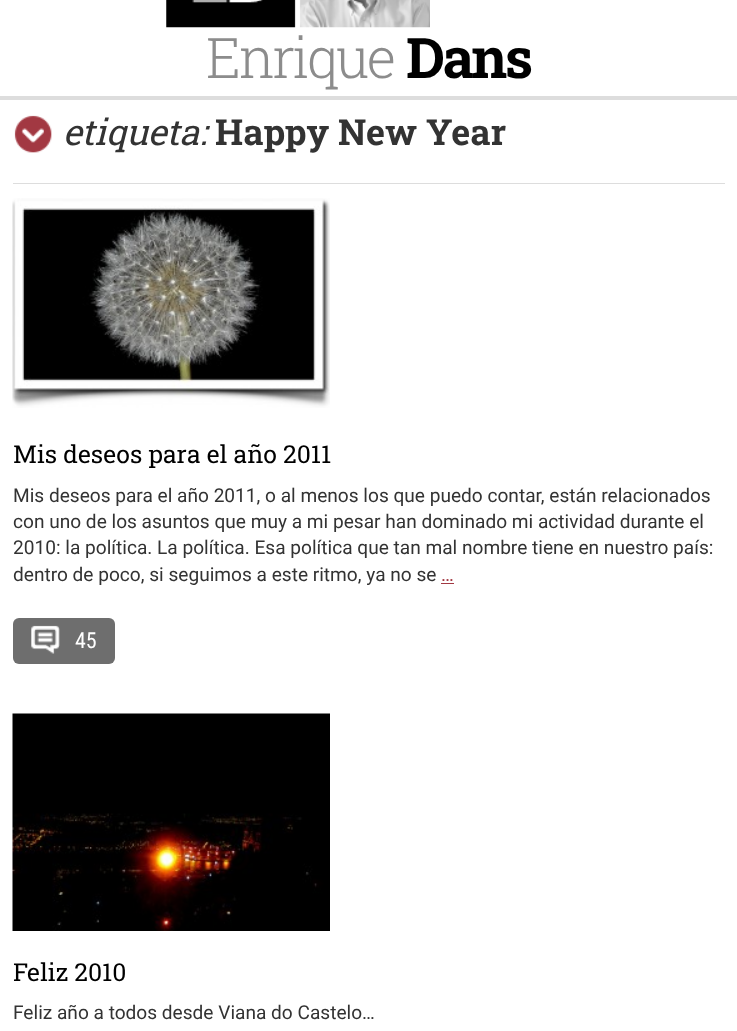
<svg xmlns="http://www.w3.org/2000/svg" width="737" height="1031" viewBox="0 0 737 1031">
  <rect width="100%" height="100%" fill="rgb(255,255,255)"/>
  <rect x="0" y="96" width="737" height="4" fill="rgb(221,221,221)"/>
  <image x="166" y="0" width="264" height="28" href="pic1.png"/>
  <text x="206" y="78" font-family="Roboto Slab" font-size="56" font-weight="300" letter-spacing="-2.5" fill="rgb(140,140,140)">Enrique</text>
  <text x="406" y="78" font-family="Roboto Slab" font-size="56" font-weight="bold" letter-spacing="-2.5" fill="rgb(0,0,0)">Dans</text>
  <image x="14" y="115" width="38" height="38" href="pic2.png"/>
  <rect x="13" y="183" width="712" height="1" fill="rgb(221,221,221)"/>
  <text x="63" y="145" font-family="Roboto Slab" font-size="36" font-style="italic" fill="rgb(51,51,51)">etiqueta:</text>
  <text x="215" y="145" font-family="Roboto Slab" font-size="36" font-weight="bold" fill="rgb(51,51,51)">Happy New Year</text>
  <image x="12" y="198" width="318" height="210" href="pic3.png"/>
  <text x="13" y="463" font-family="Roboto Slab" font-size="24.75" fill="rgb(0,0,0)">Mis deseos para el año 2011</text>
  <g font-family="Roboto" font-size="19.1" fill="rgb(51,51,51)">
    <text>
      <tspan x="13" y="502">Mis deseos para el año 2011, o al menos los que puedo contar, están relacionados</tspan>
      <tspan x="13" y="528">con uno de los asuntos que muy a mi pesar han dominado mi actividad durante el</tspan>
      <tspan x="13" y="554">2010: la política. La política. Esa política que tan mal nombre tiene en nuestro país:</tspan>
      <tspan x="13" y="581">dentro de poco, si seguimos a este ritmo, ya no se</tspan>
    </text>
  </g>
  <text x="441" y="581" font-family="Roboto" font-size="19.1" fill="rgb(162,56,66)">…</text>
  <rect x="441" y="583" width="13" height="1" fill="rgb(162,56,66)"/>
  <rect x="13" y="618" width="102" height="46" rx="6" fill="rgb(110,110,110)"/>
  <image x="31" y="625" width="29" height="29" href="pic4.png"/>
  <text x="75" y="648" font-family="Roboto Condensed" font-size="22" fill="rgb(255,255,255)">45</text>
  <image x="12" y="713" width="318" height="218" href="pic5.png"/>
  <text x="13" y="981" font-family="Roboto Slab" font-size="24.75" fill="rgb(0,0,0)">Feliz 2010</text>
  <text x="13" y="1019" font-family="Roboto" font-size="19.1" fill="rgb(51,51,51)">Feliz año a todos desde Viana do Castelo…</text>
</svg>
